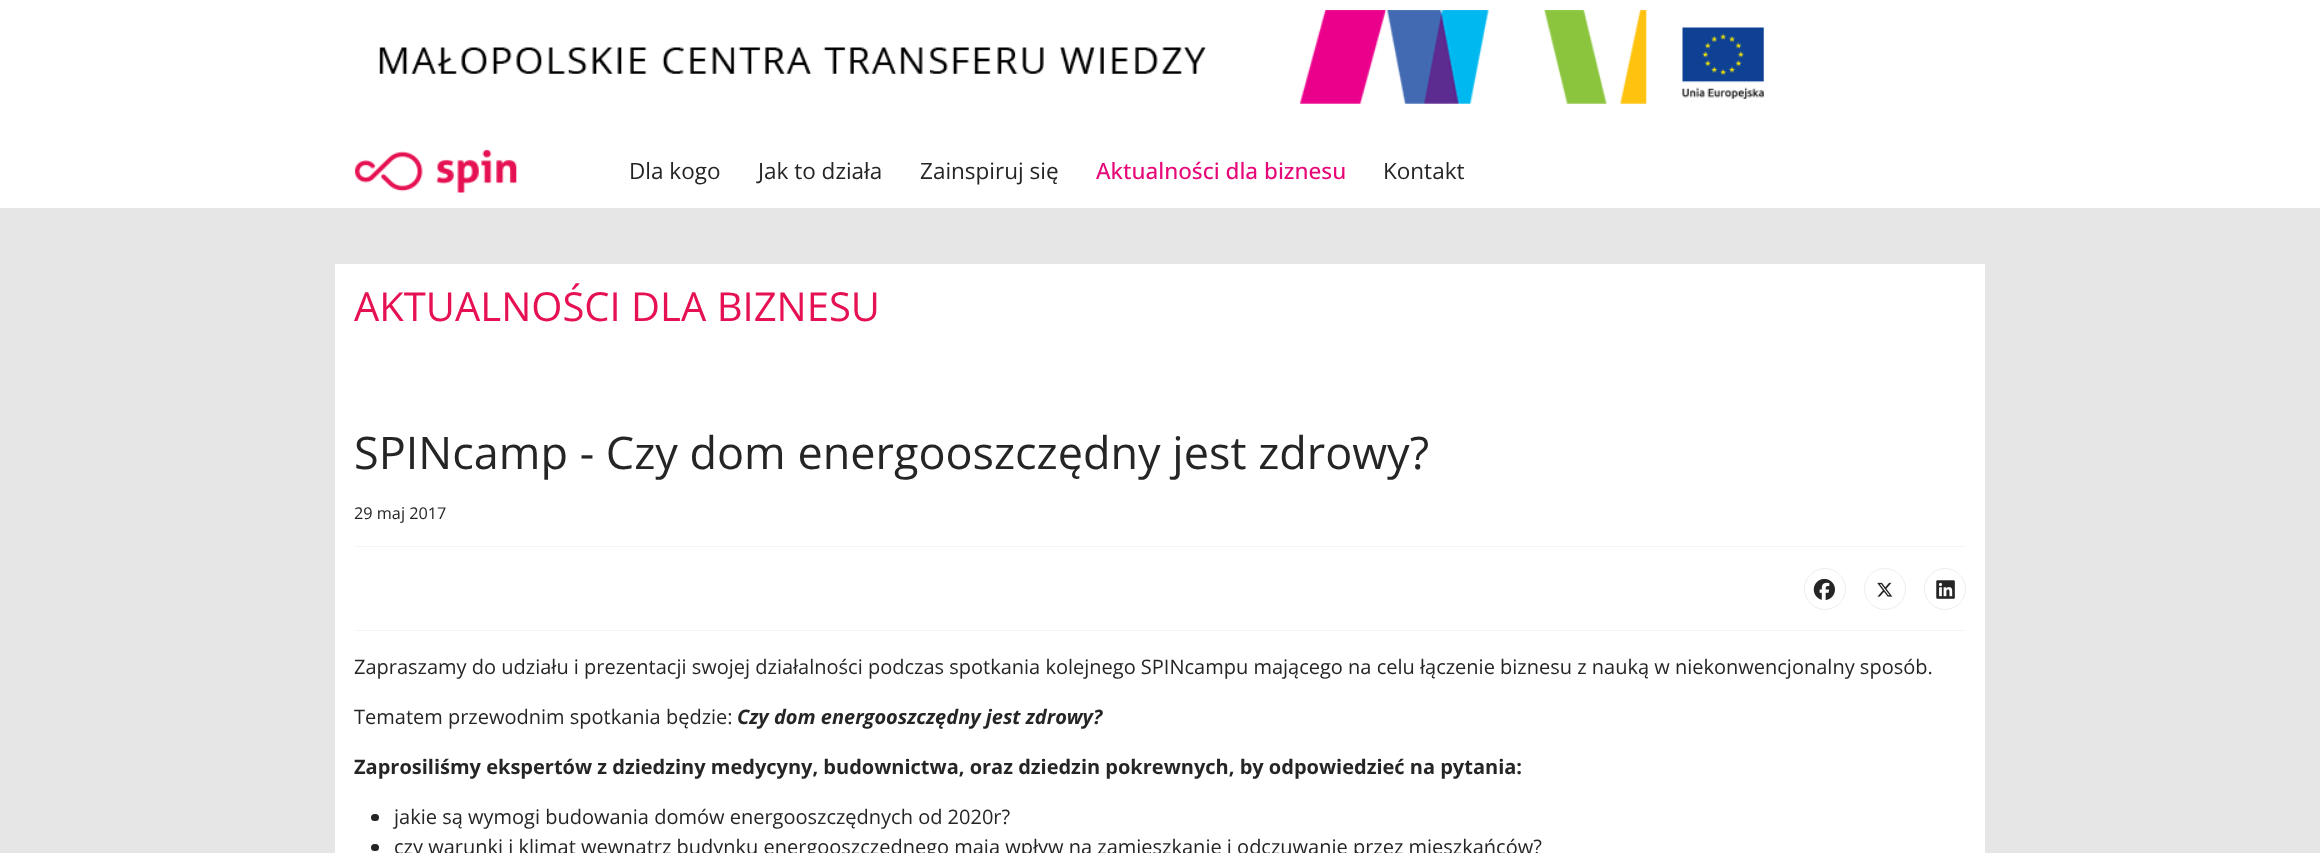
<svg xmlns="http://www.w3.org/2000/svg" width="2320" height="853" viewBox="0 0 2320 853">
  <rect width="100%" height="100%" fill="rgb(255,255,255)"/>
  <image x="379" y="10" width="1385" height="94" href="pic1.png"/>
  <image x="354" y="149" width="163" height="44" href="pic2.png"/>
  <g font-family="Open Sans" font-size="22.5" fill="rgb(37,37,37)">
    <text x="629" y="179">Dla kogo</text>
    <text x="758" y="179">Jak to działa</text>
    <text x="920" y="179">Zainspiruj się</text>
  </g>
  <text x="1096" y="179" font-family="Open Sans" font-size="22.5" font-weight="500" fill="rgb(230,7,120)">Aktualności dla biznesu</text>
  <text x="1383" y="179" font-family="Open Sans" font-size="22.5" fill="rgb(37,37,37)">Kontakt</text>
  <rect x="0" y="208" width="2320" height="645" fill="rgb(230,230,230)"/>
  <rect x="335" y="264" width="1650" height="589" fill="rgb(255,255,255)"/>
  <text x="354" y="321" font-family="Open Sans" font-size="40" fill="rgb(230,17,82)">AKTUALNOŚCI DLA BIZNESU</text>
  <text x="354" y="469" font-family="Open Sans" font-size="45" fill="rgb(37,37,37)">SPINcamp - Czy dom energooszczędny jest zdrowy?</text>
  <text x="354" y="519" font-family="Open Sans" font-size="16.25" fill="rgb(37,37,37)">29 maj 2017</text>
  <rect x="354" y="546" width="1612" height="1" fill="rgb(245,245,245)"/>
  <rect x="354" y="630" width="1612" height="1" fill="rgb(245,245,245)"/>
  <circle cx="1825" cy="589" r="20.5" fill="none" stroke="rgb(237,237,237)"/>
  <image x="1813" y="578" width="22" height="22" href="pic3.png"/>
  <circle cx="1885" cy="589" r="20.5" fill="none" stroke="rgb(237,237,237)"/>
  <image x="1877" y="582" width="16" height="15" href="pic4.png"/>
  <circle cx="1945" cy="589" r="20.5" fill="none" stroke="rgb(237,237,237)"/>
  <image x="1936" y="580" width="19" height="19" href="pic5.png"/>
  <g font-family="Open Sans" font-size="20" fill="rgb(37,37,37)">
    <text x="354" y="674">Zapraszamy do udziału i prezentacji swojej działalności podczas spotkania kolejnego SPINcampu mającego na celu łączenie biznesu z nauką w niekonwencjonalny sposób.</text>
    <text x="354" y="724">Tematem przewodnim spotkania będzie:</text>
  </g>
  <text x="737" y="724" font-family="Open Sans" font-size="20" font-weight="bold" font-style="italic" fill="rgb(37,37,37)">Czy dom energooszczędny jest zdrowy?</text>
  <text x="354" y="774" font-family="Open Sans" font-size="20" font-weight="bold" fill="rgb(37,37,37)">Zaprosiliśmy ekspertów z dziedziny medycyny, budownictwa, oraz dziedzin pokrewnych, by odpowiedzieć na pytania:</text>
  <rect x="371" y="814" width="8" height="7" rx="3.5" fill="rgb(37,37,37)"/>
  <text x="394" y="824" font-family="Open Sans" font-size="20" fill="rgb(37,37,37)">jakie są wymogi budowania domów energooszczędnych od 2020r?</text>
  <rect x="371" y="844" width="8" height="7" rx="3.5" fill="rgb(37,37,37)"/>
  <text x="394" y="854" font-family="Open Sans" font-size="20" fill="rgb(37,37,37)">czy warunki i klimat wewnątrz budynku energooszczędnego mają wpływ na zamieszkanie i odczuwanie przez mieszkańców?</text>
</svg>
